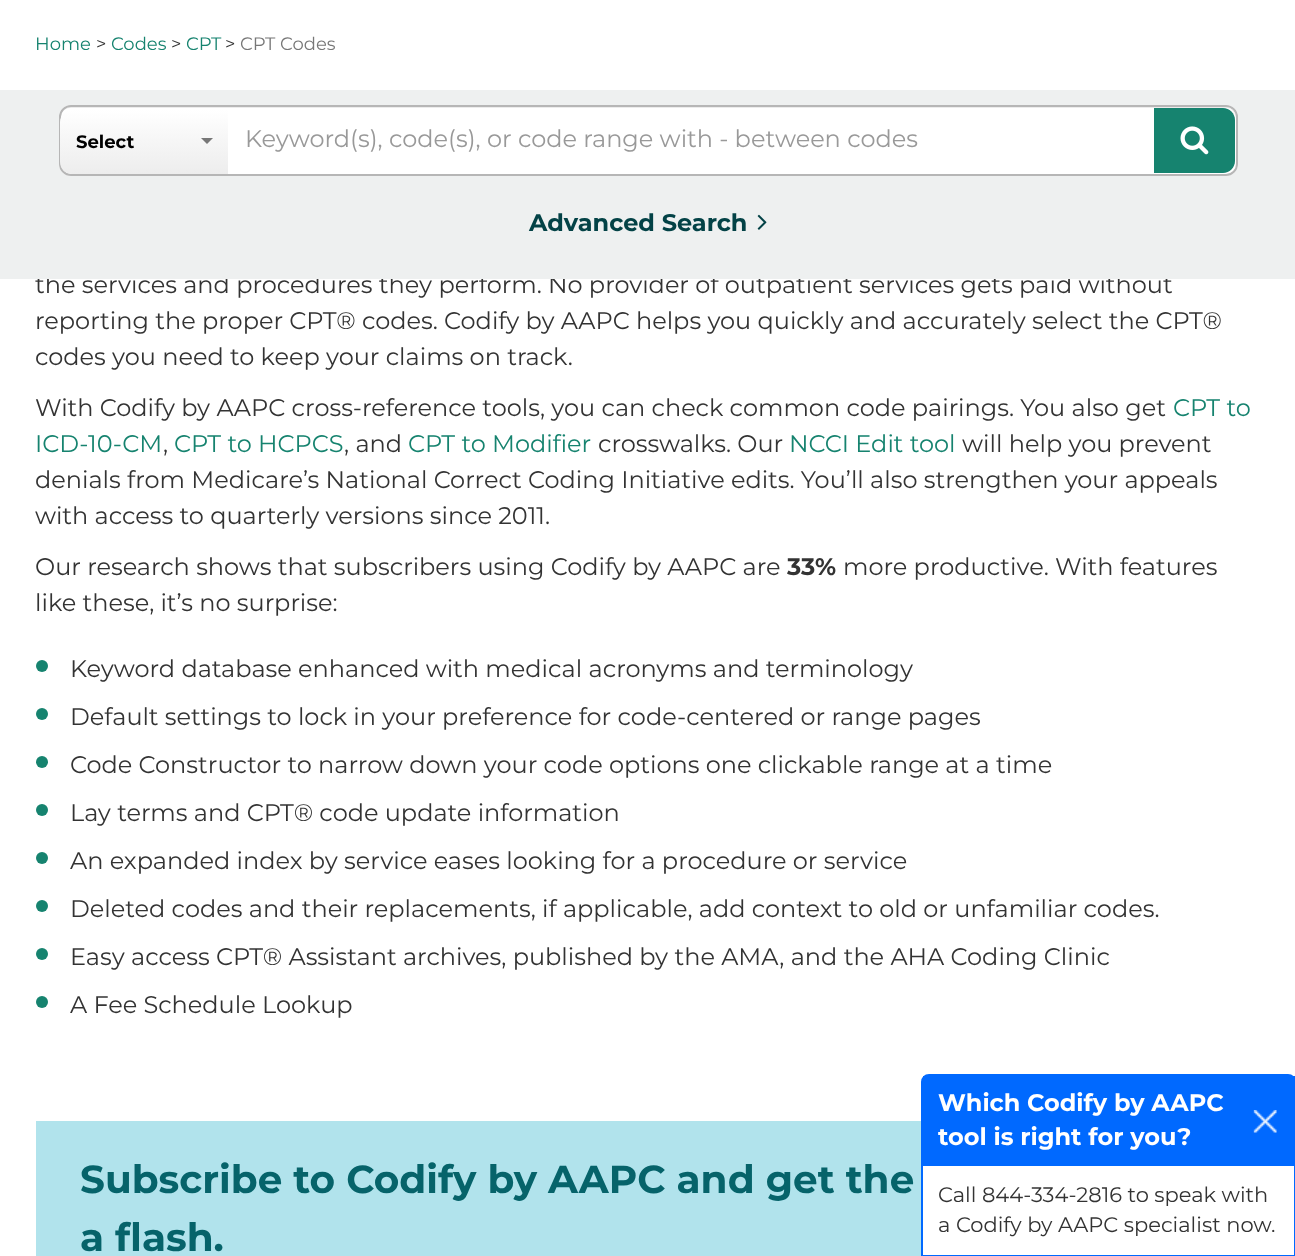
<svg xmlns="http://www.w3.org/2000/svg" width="1295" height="1256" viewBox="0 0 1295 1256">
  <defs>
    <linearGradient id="g1" gradientUnits="userSpaceOnUse" x1="144" y1="110" x2="144" y2="174"><stop offset="0" stop-color="rgb(255,255,255)"/><stop offset="0.47" stop-color="rgb(246,246,246)"/><stop offset="1" stop-color="rgb(237,237,237)"/></linearGradient>
  </defs>
  <rect width="100%" height="100%" fill="rgb(255,255,255)"/>
  <text x="35" y="50" font-family="Montserrat" font-size="18" fill="rgb(22,131,111)">Home</text>
  <text x="96" y="50" font-family="Montserrat" font-size="18" fill="rgb(51,51,51)">&gt;</text>
  <text x="111" y="50" font-family="Montserrat" font-size="18" fill="rgb(22,131,111)">Codes</text>
  <text x="171" y="50" font-family="Montserrat" font-size="18" fill="rgb(51,51,51)">&gt;</text>
  <text x="186" y="50" font-family="Montserrat" font-size="18" fill="rgb(22,131,111)">CPT</text>
  <text x="225" y="50" font-family="Montserrat" font-size="18" fill="rgb(51,51,51)">&gt;</text>
  <text x="240" y="50" font-family="Montserrat" font-size="18" fill="rgb(119,119,119)">CPT Codes</text>
  <g font-family="Montserrat" font-size="24" fill="rgb(51,51,51)">
    <text>
      <tspan x="35" y="293">the services and procedures they perform. No provider of outpatient services gets paid without</tspan>
      <tspan x="35" y="329">reporting the proper CPT® codes. Codify by AAPC helps you quickly and accurately select the CPT®</tspan>
      <tspan x="35" y="365">codes you need to keep your claims on track.</tspan>
    </text>
    <text x="35" y="416">With Codify by AAPC cross-reference tools, you can check common code pairings. You also get</text>
  </g>
  <g font-family="Montserrat" font-size="24" fill="rgb(22,131,111)">
    <text x="1173" y="416">CPT to</text>
    <text x="35" y="452">ICD-10-CM</text>
  </g>
  <text x="163" y="452" font-family="Montserrat" font-size="24" fill="rgb(51,51,51)">,</text>
  <text x="174" y="452" font-family="Montserrat" font-size="24" fill="rgb(22,131,111)">CPT to HCPCS</text>
  <text x="344" y="452" font-family="Montserrat" font-size="24" fill="rgb(51,51,51)">, and</text>
  <text x="408" y="452" font-family="Montserrat" font-size="24" fill="rgb(22,131,111)">CPT to Modifier</text>
  <text x="598" y="452" font-family="Montserrat" font-size="24" fill="rgb(51,51,51)">crosswalks. Our</text>
  <text x="789" y="452" font-family="Montserrat" font-size="24" fill="rgb(22,131,111)">NCCI Edit tool</text>
  <g font-family="Montserrat" font-size="24" fill="rgb(51,51,51)">
    <text x="962" y="452">will help you prevent</text>
    <text>
      <tspan x="35" y="488">denials from Medicare’s National Correct Coding Initiative edits. You’ll also strengthen your appeals</tspan>
      <tspan x="35" y="524">with access to quarterly versions since 2011.</tspan>
    </text>
    <text x="35" y="575">Our research shows that subscribers using Codify by AAPC are</text>
  </g>
  <text x="787" y="575" font-family="Montserrat" font-size="24" font-weight="bold" fill="rgb(51,51,51)">33%</text>
  <g font-family="Montserrat" font-size="24" fill="rgb(51,51,51)">
    <text x="843" y="575">more productive. With features</text>
    <text x="35" y="611">like these, it’s no surprise:</text>
  </g>
  <circle cx="42" cy="666" r="6" fill="rgb(22,131,111)"/>
  <text x="70" y="677" font-family="Montserrat" font-size="24" fill="rgb(51,51,51)">Keyword database enhanced with medical acronyms and terminology</text>
  <circle cx="42" cy="714" r="6" fill="rgb(22,131,111)"/>
  <text x="70" y="725" font-family="Montserrat" font-size="24" fill="rgb(51,51,51)">Default settings to lock in your preference for code-centered or range pages</text>
  <circle cx="42" cy="762" r="6" fill="rgb(22,131,111)"/>
  <text x="70" y="773" font-family="Montserrat" font-size="24" fill="rgb(51,51,51)">Code Constructor to narrow down your code options one clickable range at a time</text>
  <circle cx="42" cy="810" r="6" fill="rgb(22,131,111)"/>
  <text x="70" y="821" font-family="Montserrat" font-size="24" fill="rgb(51,51,51)">Lay terms and CPT® code update information</text>
  <circle cx="42" cy="858" r="6" fill="rgb(22,131,111)"/>
  <text x="70" y="869" font-family="Montserrat" font-size="24" fill="rgb(51,51,51)">An expanded index by service eases looking for a procedure or service</text>
  <circle cx="42" cy="906" r="6" fill="rgb(22,131,111)"/>
  <text x="70" y="917" font-family="Montserrat" font-size="24" fill="rgb(51,51,51)">Deleted codes and their replacements, if applicable, add context to old or unfamiliar codes.</text>
  <circle cx="42" cy="954" r="6" fill="rgb(22,131,111)"/>
  <text x="70" y="965" font-family="Montserrat" font-size="24" fill="rgb(51,51,51)">Easy access CPT® Assistant archives, published by the AMA, and the AHA Coding Clinic</text>
  <circle cx="42" cy="1002" r="6" fill="rgb(22,131,111)"/>
  <text x="70" y="1013" font-family="Montserrat" font-size="24" fill="rgb(51,51,51)">A Fee Schedule Lookup</text>
  <rect x="36" y="1121" width="885" height="135" fill="rgb(177,227,236)"/>
  <g font-family="Montserrat" font-size="39" font-weight="bold" fill="rgb(6,99,106)">
    <text>
      <tspan x="80" y="1193">Subscribe to Codify by AAPC and get the</tspan>
      <tspan x="80" y="1251">a flash.</tspan>
    </text>
  </g>
  <rect x="0" y="90" width="1295" height="189" fill="rgb(238,240,240)"/>
  <rect x="59" y="105" width="1179" height="71" rx="12" fill="rgb(255,255,255)"/>
  <path d="M70 108H1226C1231 108 1236 113 1236 118C1236 112 1231 107 1225 107H71C65 107 60 112 60 118C60 113 65 108 70 108Z" fill="rgb(236,236,236)"/>
  <rect x="60" y="106" width="1177" height="69" rx="11" fill="none" stroke="rgb(182,182,182)" stroke-width="2"/>
  <path d="M72 110H228V174H72C65.5 174 60 168.5 60 162V122C60 115.5 65.5 110 72 110Z" fill="url(#g1)"/>
  <text x="76" y="148" font-family="Montserrat" font-size="18" font-weight="bold" fill="rgb(0,0,0)">Select</text>
  <path d="M201 138H213L207 144Z" fill="rgb(119,119,119)"/>
  <text x="245" y="147" font-family="Montserrat" font-size="24" fill="rgb(153,153,153)">Keyword(s), code(s), or code range with - between codes</text>
  <path d="M1154 108H1223C1229.5 108 1235 113.5 1235 120V161C1235 167.5 1229.5 173 1223 173H1154Z" fill="rgb(22,131,111)"/>
  <image x="1180" y="126" width="29" height="29" href="pic1.png"/>
  <text x="529" y="231" font-family="Montserrat" font-size="24" font-weight="bold" fill="rgb(3,66,70)">Advanced Search</text>
  <image x="757" y="214" width="10" height="16" href="pic2.png"/>
  <path d="M929 1075H1288C1292 1075 1295 1078 1295 1082V1256H922V1082C922 1078 925 1075 929 1075Z" fill="none" stroke="rgb(0,105,255)" stroke-width="2"/>
  <rect x="923" y="1076" width="372" height="90" fill="rgb(0,105,255)"/>
  <text x="938" y="1111" font-family="Montserrat" font-size="24" font-weight="bold" fill="rgb(255,255,255)">Which Codify by AAPC</text>
  <image x="1253" y="1110" width="24" height="23" href="pic3.png"/>
  <text x="938" y="1145" font-family="Montserrat" font-size="24" font-weight="bold" fill="rgb(255,255,255)">tool is right for you?</text>
  <g font-family="Montserrat" font-size="21" fill="rgb(51,51,51)">
    <text>
      <tspan x="938" y="1202">Call 844-334-2816 to speak with</tspan>
      <tspan x="938" y="1232">a Codify by AAPC specialist now.</tspan>
    </text>
  </g>
</svg>
